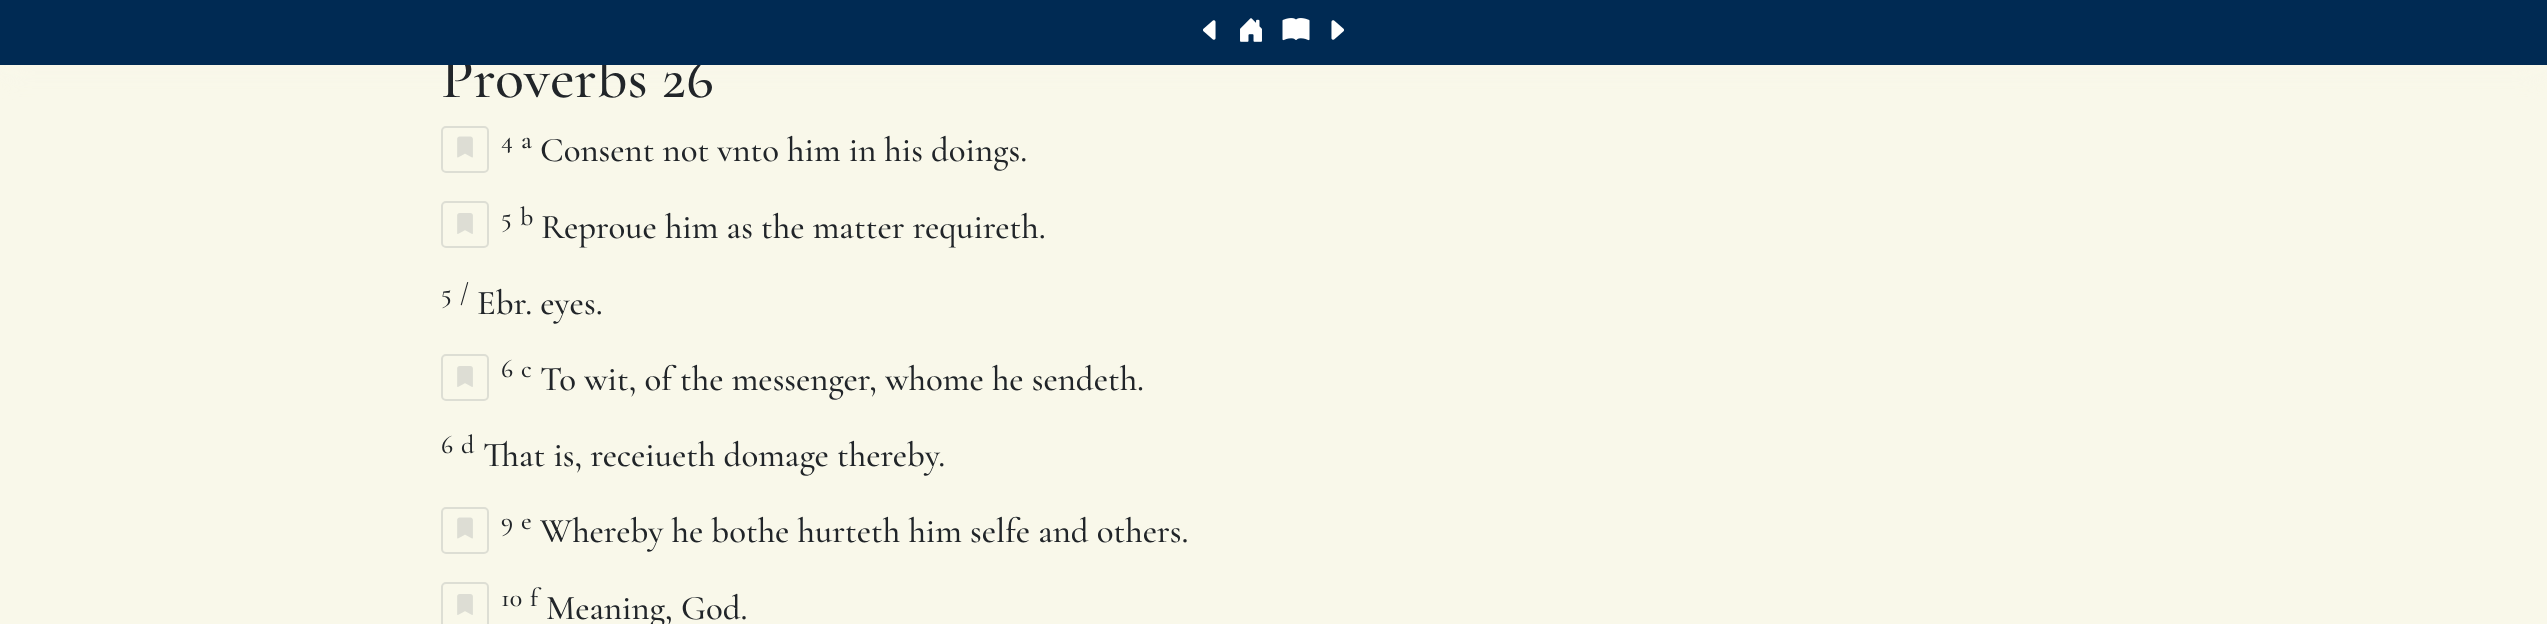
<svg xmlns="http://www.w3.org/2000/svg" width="2547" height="624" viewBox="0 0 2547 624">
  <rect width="100%" height="100%" fill="rgb(249,248,234)"/>
  <rect x="0" y="0" width="2547" height="65" fill="rgba(249,248,234,0.67)" filter="blur(15px)"/>
  <text x="441" y="97" font-family="Cormorant Garamond" font-size="60" font-weight="500" fill="rgb(33,37,41)">Proverbs 26</text>
  <rect x="0" y="0" width="2547" height="65" fill="rgb(0,42,83)"/>
  <image x="1203" y="20" width="13" height="20" href="pic1.png"/>
  <image x="1240" y="18" width="22" height="24" href="pic2.png"/>
  <image x="1282" y="18" width="28" height="23" href="pic3.png"/>
  <image x="1331" y="20" width="13" height="20" href="pic4.png"/>
  <rect x="442" y="127" width="46" height="45" rx="4" fill="none" stroke="rgb(221,222,212)" stroke-width="2"/>
  <image x="457" y="136" width="16" height="22" href="pic5.png"/>
  <g font-family="Cormorant Garamond" font-size="26" font-weight="500" fill="rgb(33,37,41)">
    <text x="501" y="148">4</text>
    <text x="521" y="148">a</text>
  </g>
  <text x="540" y="161" font-family="Cormorant Garamond" font-size="34.75" font-weight="500" fill="rgb(33,37,41)">Consent not vnto him in his doings.</text>
  <rect x="442" y="202" width="46" height="45" rx="4" fill="none" stroke="rgb(221,222,212)" stroke-width="2"/>
  <image x="457" y="213" width="16" height="21" href="pic6.png"/>
  <g font-family="Cormorant Garamond" font-size="26" font-weight="500" fill="rgb(33,37,41)">
    <text x="501" y="225">5</text>
    <text x="520" y="225">b</text>
  </g>
  <text x="541" y="238" font-family="Cormorant Garamond" font-size="34.75" font-weight="500" fill="rgb(33,37,41)">Reproue him as the matter requireth.</text>
  <g font-family="Cormorant Garamond" font-size="26" font-weight="500" fill="rgb(33,37,41)">
    <text x="441" y="301">5</text>
    <text x="460" y="301">/</text>
  </g>
  <text x="477" y="314" font-family="Cormorant Garamond" font-size="34.75" font-weight="500" fill="rgb(33,37,41)">Ebr. eyes.</text>
  <rect x="442" y="355" width="46" height="45" rx="4" fill="none" stroke="rgb(221,222,212)" stroke-width="2"/>
  <image x="457" y="366" width="16" height="21" href="pic6.png"/>
  <g font-family="Cormorant Garamond" font-size="26" font-weight="500" fill="rgb(33,37,41)">
    <text x="501" y="377">6</text>
    <text x="521" y="377">c</text>
  </g>
  <text x="540" y="390" font-family="Cormorant Garamond" font-size="34.75" font-weight="500" fill="rgb(33,37,41)">To wit, of the messenger, whome he sendeth.</text>
  <g font-family="Cormorant Garamond" font-size="26" font-weight="500" fill="rgb(33,37,41)">
    <text x="441" y="453">6</text>
    <text x="461" y="453">d</text>
  </g>
  <text x="483" y="466" font-family="Cormorant Garamond" font-size="34.75" font-weight="500" fill="rgb(33,37,41)">That is, receiueth domage thereby.</text>
  <rect x="442" y="508" width="46" height="45" rx="4" fill="none" stroke="rgb(221,222,212)" stroke-width="2"/>
  <image x="457" y="517" width="16" height="22" href="pic5.png"/>
  <g font-family="Cormorant Garamond" font-size="26" font-weight="500" fill="rgb(33,37,41)">
    <text x="501" y="529">9</text>
    <text x="521" y="529">e</text>
  </g>
  <text x="540" y="542" font-family="Cormorant Garamond" font-size="34.75" font-weight="500" fill="rgb(33,37,41)">Whereby he bothe hurteth him selfe and others.</text>
  <rect x="442" y="583" width="46" height="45" rx="4" fill="none" stroke="rgb(221,222,212)" stroke-width="2"/>
  <image x="457" y="594" width="16" height="21" href="pic6.png"/>
  <g font-family="Cormorant Garamond" font-size="26" font-weight="500" fill="rgb(33,37,41)">
    <text x="501" y="606">10</text>
    <text x="530" y="606">f</text>
  </g>
  <text x="546" y="619" font-family="Cormorant Garamond" font-size="34.75" font-weight="500" fill="rgb(33,37,41)">Meaning, God.</text>
</svg>
